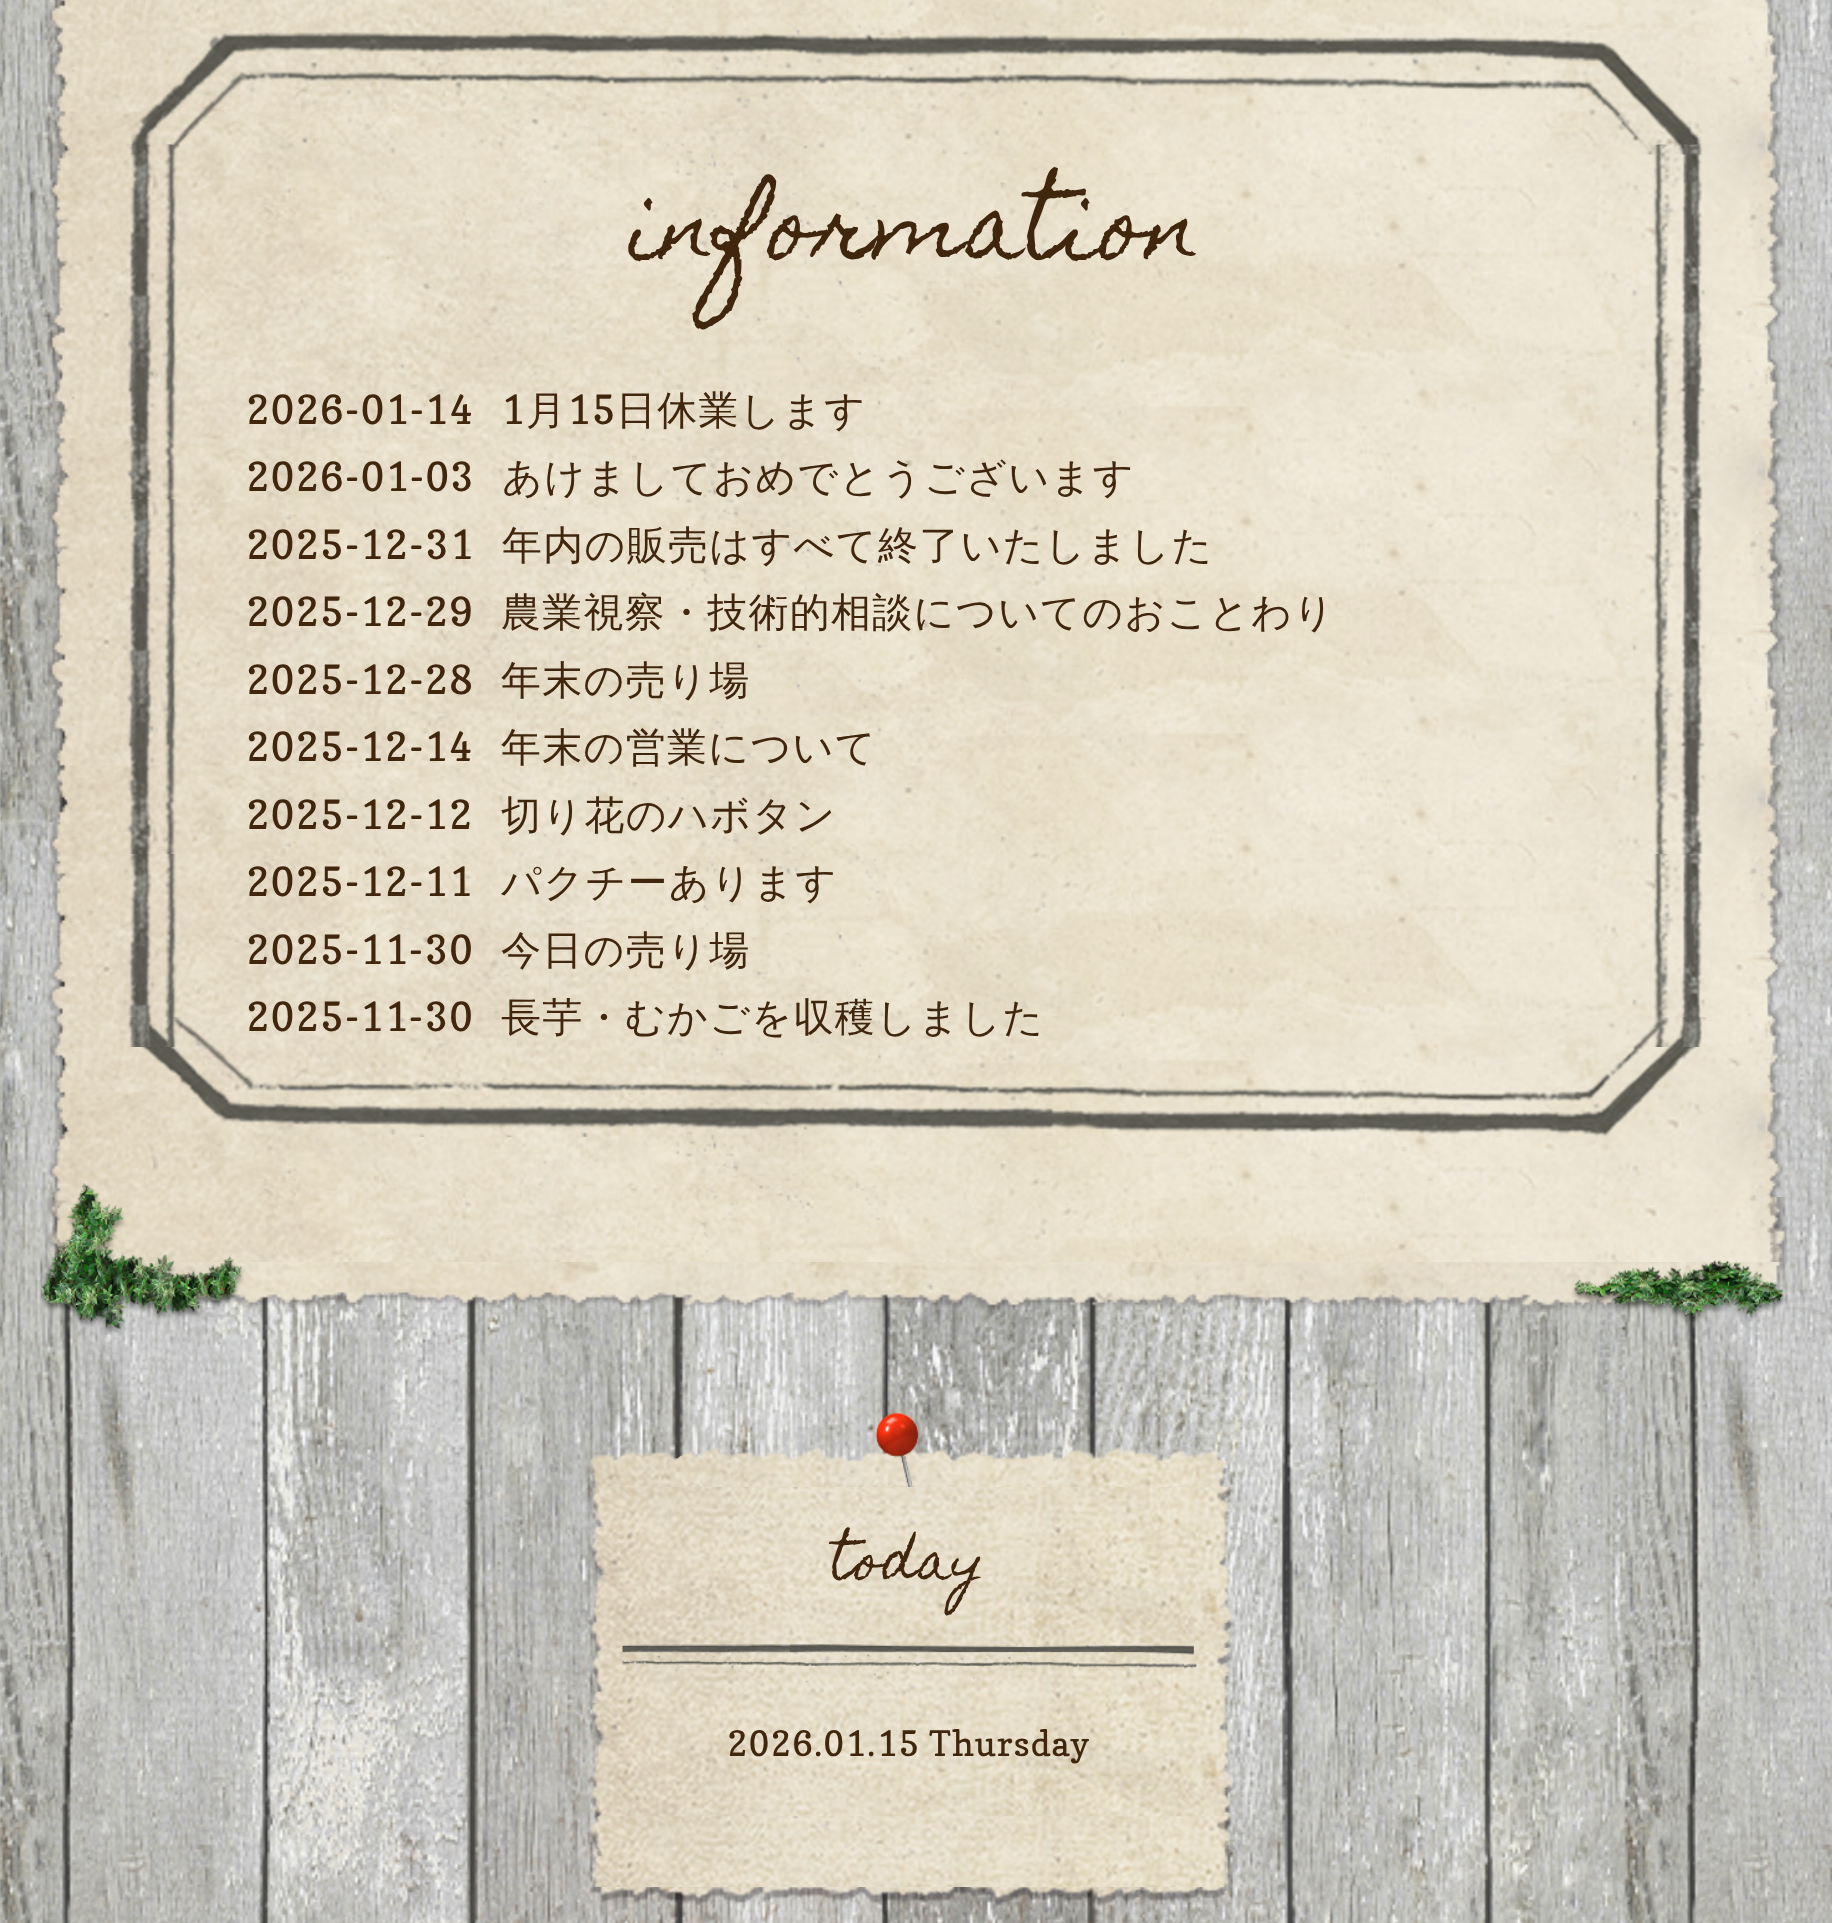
<svg xmlns="http://www.w3.org/2000/svg" width="1832" height="1923" viewBox="0 0 1832 1923">
  <rect width="100%" height="100%" fill="rgb(255,255,255)"/>
  <image x="0" y="0" width="1832" height="1923" href="pic1.png"/>
  <image x="47" y="1197" width="1741" height="115" href="pic2.png"/>
  <image x="45" y="0" width="1740" height="1262" href="pic3.png"/>
  <image x="128" y="32" width="1579" height="1105" href="pic4.png"/>
  <image x="120" y="144" width="1586" height="903" href="pic5.png"/>
  <text x="630" y="256" font-family="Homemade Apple" font-size="87.5" letter-spacing="1.25" fill="rgb(63,38,13)">information</text>
  <g font-family="Copse" font-size="40" letter-spacing="1.25" fill="rgb(63,38,13)">
    <text x="246" y="424">2026-01-14</text>
    <text x="501" y="424">1</text>
  </g>
  <text x="526" y="424" font-family="WenQuanYi Zen Hei" font-size="40" font-weight="500" letter-spacing="1.25" fill="rgb(63,38,13)">月</text>
  <text x="567" y="424" font-family="Copse" font-size="40" letter-spacing="1.25" fill="rgb(63,38,13)">15</text>
  <text x="616" y="424" font-family="WenQuanYi Zen Hei" font-size="40" font-weight="500" letter-spacing="1.25" fill="rgb(63,38,13)">日休業します</text>
  <text x="246" y="491" font-family="Copse" font-size="40" letter-spacing="1.25" fill="rgb(63,38,13)">2026-01-03</text>
  <text x="502" y="491" font-family="WenQuanYi Zen Hei" font-size="40" font-weight="500" letter-spacing="1.25" fill="rgb(63,38,13)">あけましておめでとうございます</text>
  <text x="246" y="559" font-family="Copse" font-size="40" letter-spacing="1.25" fill="rgb(63,38,13)">2025-12-31</text>
  <text x="502" y="559" font-family="WenQuanYi Zen Hei" font-size="40" font-weight="500" letter-spacing="1.25" fill="rgb(63,38,13)">年内の販売はすべて終了いたしました</text>
  <text x="246" y="626" font-family="Copse" font-size="40" letter-spacing="1.25" fill="rgb(63,38,13)">2025-12-29</text>
  <text x="501" y="626" font-family="WenQuanYi Zen Hei" font-size="40" font-weight="500" letter-spacing="1.25" fill="rgb(63,38,13)">農業視察・技術的相談についてのおことわり</text>
  <text x="246" y="694" font-family="Copse" font-size="40" letter-spacing="1.25" fill="rgb(63,38,13)">2025-12-28</text>
  <text x="501" y="694" font-family="WenQuanYi Zen Hei" font-size="40" font-weight="500" letter-spacing="1.25" fill="rgb(63,38,13)">年末の売り場</text>
  <text x="246" y="761" font-family="Copse" font-size="40" letter-spacing="1.25" fill="rgb(63,38,13)">2025-12-14</text>
  <text x="501" y="761" font-family="WenQuanYi Zen Hei" font-size="40" font-weight="500" letter-spacing="1.25" fill="rgb(63,38,13)">年末の営業について</text>
  <text x="246" y="829" font-family="Copse" font-size="40" letter-spacing="1.25" fill="rgb(63,38,13)">2025-12-12</text>
  <text x="501" y="829" font-family="WenQuanYi Zen Hei" font-size="40" font-weight="500" letter-spacing="1.25" fill="rgb(63,38,13)">切り花のハボタン</text>
  <text x="246" y="896" font-family="Copse" font-size="40" letter-spacing="1.25" fill="rgb(63,38,13)">2025-12-11</text>
  <text x="501" y="896" font-family="WenQuanYi Zen Hei" font-size="40" font-weight="500" letter-spacing="1.25" fill="rgb(63,38,13)">パクチーあります</text>
  <text x="246" y="964" font-family="Copse" font-size="40" letter-spacing="1.25" fill="rgb(63,38,13)">2025-11-30</text>
  <text x="501" y="964" font-family="WenQuanYi Zen Hei" font-size="40" font-weight="500" letter-spacing="1.25" fill="rgb(63,38,13)">今日の売り場</text>
  <text x="246" y="1031" font-family="Copse" font-size="40" letter-spacing="1.25" fill="rgb(63,38,13)">2025-11-30</text>
  <text x="501" y="1031" font-family="WenQuanYi Zen Hei" font-size="40" font-weight="500" letter-spacing="1.25" fill="rgb(63,38,13)">長芋・むかごを収穫しました</text>
  <image x="39" y="1183" width="205" height="153" href="pic6.png"/>
  <image x="1571" y="1260" width="215" height="62" href="pic7.png"/>
  <image x="589" y="1412" width="643" height="500" href="pic8.png"/>
  <image x="590" y="1487" width="644" height="400" href="pic9.png"/>
  <text x="831" y="1578" font-family="Homemade Apple" font-size="50" letter-spacing="1.25" fill="rgb(63,38,13)">today</text>
  <image x="622" y="1644" width="575" height="41" href="pic10.png"/>
  <text x="727" y="1756" font-family="Copse" font-size="35" letter-spacing="1.25" fill="rgb(63,38,13)">2026.01.15 Thursday</text>
</svg>
